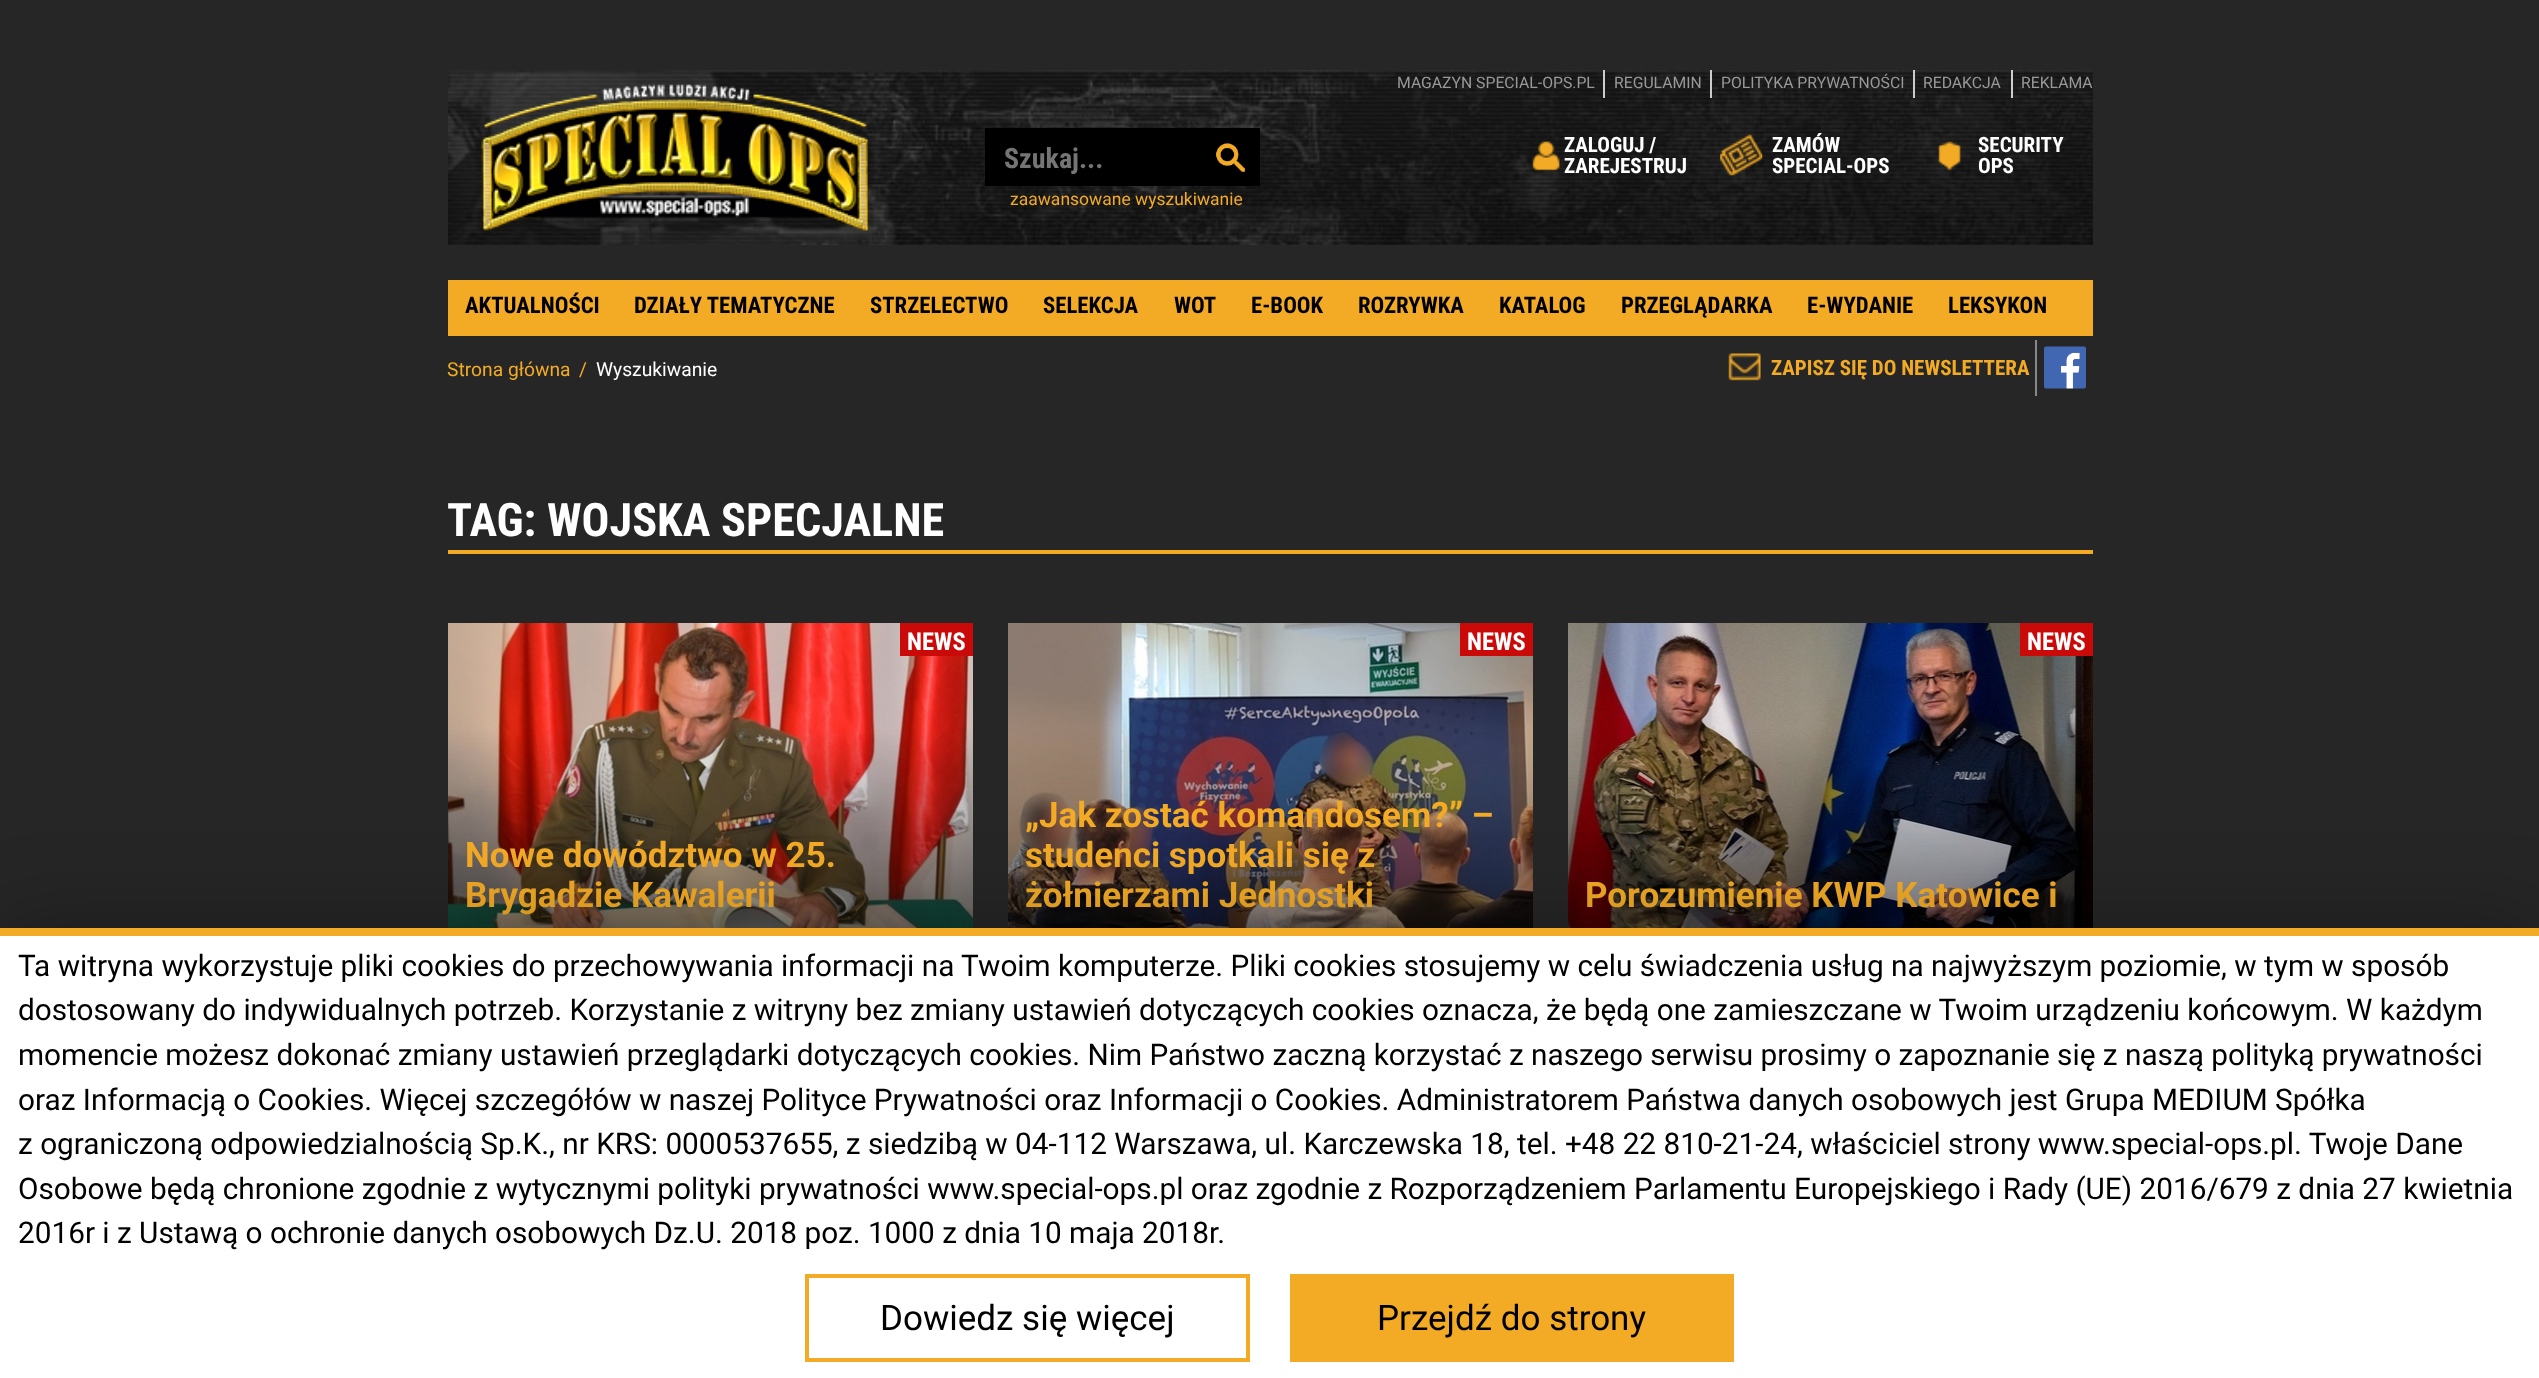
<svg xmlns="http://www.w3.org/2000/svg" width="2539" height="1378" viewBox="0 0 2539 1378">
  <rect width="100%" height="100%" fill="rgb(38,38,38)"/>
  <image x="448" y="70" width="1645" height="175" href="pic1.png"/>
  <rect x="1603" y="70" width="2" height="28" fill="rgb(204,204,204)"/>
  <text x="1397" y="88" font-family="Roboto" font-size="15.75" fill="rgb(153,153,153)">MAGAZYN SPECIAL-OPS.PL</text>
  <rect x="1710" y="70" width="2" height="28" fill="rgb(204,204,204)"/>
  <text x="1614" y="88" font-family="Roboto" font-size="15.75" fill="rgb(153,153,153)">REGULAMIN</text>
  <rect x="1913" y="70" width="2" height="28" fill="rgb(204,204,204)"/>
  <text x="1721" y="88" font-family="Roboto" font-size="15.75" fill="rgb(153,153,153)">POLITYKA PRYWATNOŚCI</text>
  <rect x="2011" y="70" width="2" height="28" fill="rgb(204,204,204)"/>
  <g font-family="Roboto" font-size="15.75" fill="rgb(153,153,153)">
    <text x="1923" y="88">REDAKCJA</text>
    <text x="2021" y="88">REKLAMA</text>
  </g>
  <image x="481" y="84" width="393" height="152" href="pic2.png"/>
  <rect x="985" y="128" width="275" height="58" fill="rgb(0,0,0)"/>
  <text x="1004" y="168" font-family="Roboto Condensed" font-size="28" font-weight="bold" fill="rgb(117,117,117)">Szukaj...</text>
  <image x="1216" y="143" width="29" height="29" href="pic3.png"/>
  <text x="1010" y="205" font-family="Roboto" font-size="17.5" fill="rgb(243,171,38)">zaawansowane wyszukiwanie</text>
  <image x="1532" y="141" width="28" height="30" href="pic4.png"/>
  <g font-family="Roboto Condensed" font-size="21" font-weight="bold" fill="rgb(255,255,255)">
    <text>
      <tspan x="1564" y="152">ZALOGUJ /</tspan>
      <tspan x="1564" y="173">ZAREJESTRUJ</tspan>
    </text>
  </g>
  <image x="1720" y="134" width="43" height="42" href="pic5.png"/>
  <g font-family="Roboto Condensed" font-size="21" font-weight="bold" fill="rgb(255,255,255)">
    <text>
      <tspan x="1772" y="152">ZAMÓW</tspan>
      <tspan x="1772" y="173">SPECIAL-OPS</tspan>
    </text>
  </g>
  <image x="1938" y="141" width="23" height="29" href="pic6.png"/>
  <g font-family="Roboto Condensed" font-size="21" font-weight="bold" fill="rgb(255,255,255)">
    <text>
      <tspan x="1978" y="152">SECURITY</tspan>
      <tspan x="1978" y="173">OPS</tspan>
    </text>
  </g>
  <rect x="448" y="280" width="1645" height="56" fill="rgb(243,171,38)"/>
  <g font-family="Roboto Condensed" font-size="22.75" font-weight="bold" fill="rgb(0,0,0)">
    <text x="465" y="313">AKTUALNOŚCI</text>
    <text x="634" y="313">DZIAŁY TEMATYCZNE</text>
    <text x="870" y="313">STRZELECTWO</text>
    <text x="1043" y="313">SELEKCJA</text>
    <text x="1174" y="313">WOT</text>
    <text x="1251" y="313">E-BOOK</text>
    <text x="1358" y="313">ROZRYWKA</text>
    <text x="1499" y="313">KATALOG</text>
    <text x="1621" y="313">PRZEGLĄDARKA</text>
    <text x="1807" y="313">E-WYDANIE</text>
    <text x="1948" y="313">LEKSYKON</text>
  </g>
  <g font-family="Roboto" font-size="19.25" fill="rgb(243,171,38)">
    <text x="447" y="376">Strona główna</text>
    <text x="579" y="376">/</text>
  </g>
  <text x="596" y="376" font-family="Roboto" font-size="19.25" fill="rgb(255,255,255)">Wyszukiwanie</text>
  <image x="1728" y="353" width="33" height="28" href="pic7.png"/>
  <text x="1771" y="375" font-family="Roboto Condensed" font-size="21" font-weight="bold" fill="rgb(243,171,38)">ZAPISZ SIĘ DO NEWSLETTERA</text>
  <image x="2044" y="346" width="42" height="43" href="pic8.png"/>
  <rect x="2035" y="340" width="2" height="56" fill="rgb(136,136,136)"/>
  <rect x="448" y="550" width="1645" height="4" fill="rgb(243,171,38)"/>
  <text x="447" y="536" font-family="Roboto Condensed" font-size="46.25" font-weight="bold" fill="rgb(255,255,255)">TAG: WOJSKA SPECJALNE</text>
  <image x="448" y="623" width="525" height="305" href="pic9.png"/>
  <rect x="900" y="623" width="73" height="33" fill="rgb(202,9,9)"/>
  <text x="907" y="650" font-family="Roboto Condensed" font-size="24.5" font-weight="bold" fill="rgb(255,255,255)">NEWS</text>
  <g font-family="Roboto" font-size="35" font-weight="bold" fill="rgb(243,171,38)">
    <text>
      <tspan x="465" y="867">Nowe dowództwo w 25.</tspan>
      <tspan x="465" y="907">Brygadzie Kawalerii</tspan>
    </text>
  </g>
  <image x="1008" y="623" width="525" height="305" href="pic10.png"/>
  <rect x="1460" y="623" width="73" height="33" fill="rgb(202,9,9)"/>
  <text x="1467" y="650" font-family="Roboto Condensed" font-size="24.5" font-weight="bold" fill="rgb(255,255,255)">NEWS</text>
  <g font-family="Roboto" font-size="35" font-weight="bold" fill="rgb(243,171,38)">
    <text>
      <tspan x="1025" y="827">„Jak zostać komandosem?” –</tspan>
      <tspan x="1025" y="867">studenci spotkali się z</tspan>
      <tspan x="1025" y="907">żołnierzami Jednostki</tspan>
    </text>
  </g>
  <image x="1568" y="623" width="525" height="305" href="pic11.png"/>
  <rect x="2020" y="623" width="73" height="33" fill="rgb(202,9,9)"/>
  <text x="2027" y="650" font-family="Roboto Condensed" font-size="24.5" font-weight="bold" fill="rgb(255,255,255)">NEWS</text>
  <text x="1585" y="907" font-family="Roboto" font-size="35" font-weight="bold" fill="rgb(243,171,38)">Porozumienie KWP Katowice i</text>
  <rect x="0" y="928" width="2539" height="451" fill="rgba(0,0,0,0.3)" filter="blur(44px)"/>
  <rect x="0" y="936" width="2539" height="442" fill="rgb(255,255,255)"/>
  <rect x="0" y="928" width="2539" height="8" fill="rgb(243,171,38)"/>
  <g font-family="Roboto" font-size="29.75" fill="rgb(0,0,0)">
    <text>
      <tspan x="18" y="976">Ta witryna wykorzystuje pliki cookies do przechowywania informacji na Twoim komputerze. Pliki cookies stosujemy w celu świadczenia usług na najwyższym poziomie, w tym w sposób</tspan>
      <tspan x="18" y="1020">dostosowany do indywidualnych potrzeb. Korzystanie z witryny bez zmiany ustawień dotyczących cookies oznacza, że będą one zamieszczane w Twoim urządzeniu końcowym. W każdym</tspan>
      <tspan x="18" y="1065">momencie możesz dokonać zmiany ustawień przeglądarki dotyczących cookies. Nim Państwo zaczną korzystać z naszego serwisu prosimy o zapoznanie się z naszą polityką prywatności</tspan>
      <tspan x="18" y="1110">oraz Informacją o Cookies. Więcej szczegółów w naszej Polityce Prywatności oraz Informacji o Cookies. Administratorem Państwa danych osobowych jest Grupa MEDIUM Spółka</tspan>
      <tspan x="18" y="1154">z ograniczoną odpowiedzialnością Sp.K., nr KRS: 0000537655, z siedzibą w 04-112 Warszawa, ul. Karczewska 18, tel. +48 22 810-21-24, właściciel strony www.special-ops.pl. Twoje Dane</tspan>
      <tspan x="18" y="1199">Osobowe będą chronione zgodnie z wytycznymi polityki prywatności www.special-ops.pl oraz zgodnie z Rozporządzeniem Parlamentu Europejskiego i Rady (UE) 2016/679 z dnia 27 kwietnia</tspan>
      <tspan x="18" y="1243">2016r i z Ustawą o ochronie danych osobowych Dz.U. 2018 poz. 1000 z dnia 10 maja 2018r.</tspan>
    </text>
  </g>
  <rect x="807" y="1276" width="441" height="84" fill="none" stroke="rgb(243,171,38)" stroke-width="4"/>
  <text x="880" y="1330" font-family="Roboto" font-size="35" fill="rgb(0,0,0)">Dowiedz się więcej</text>
  <rect x="1290" y="1274" width="444" height="88" fill="rgb(243,171,38)"/>
  <text x="1377" y="1330" font-family="Roboto" font-size="35" fill="rgb(0,0,0)">Przejdź do strony</text>
</svg>
